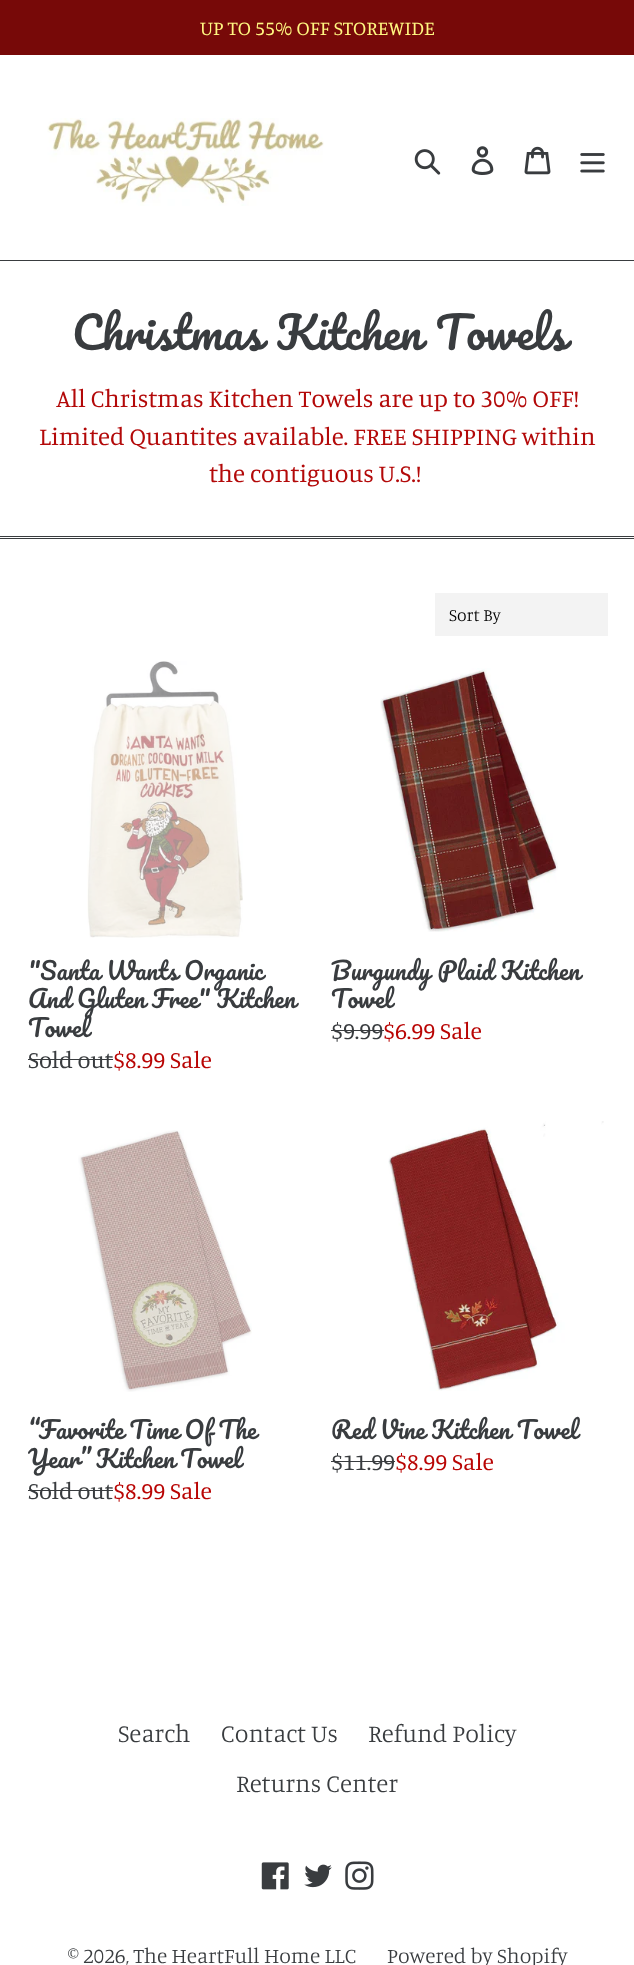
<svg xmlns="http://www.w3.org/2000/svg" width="634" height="1965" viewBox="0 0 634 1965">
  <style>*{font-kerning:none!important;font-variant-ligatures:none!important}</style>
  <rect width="100%" height="100%" fill="rgb(255,255,255)"/>
  <rect x="0" y="0" width="634" height="55" fill="rgb(119,9,8)"/>
  <text x="200" y="35" font-family="Manuale" font-size="20" fill="rgb(255,246,129)">UP TO 55% OFF STOREWIDE</text>
  <rect x="0" y="260" width="634" height="1" fill="rgb(57,60,63)"/>
  <image x="47" y="118" width="277" height="88" href="pic1.png"/>
  <image x="414" y="149" width="27" height="26" href="pic2.png"/>
  <image x="471" y="146" width="23" height="29" href="pic3.png"/>
  <image x="524" y="146" width="27" height="29" href="pic4.png"/>
  <image x="580" y="153" width="25" height="20" href="pic5.png"/>
  <text x="72" y="350" word-spacing="2" font-family="Pacifico" font-size="43.75" fill="rgb(57,60,63)">Christmas Kitchen Towels</text>
  <g font-family="Manuale" font-size="25" fill="rgb(179,9,9)">
    <text x="56" y="407">All Christmas Kitchen Towels are up to 30% OFF!</text>
    <text x="39" y="445">Limited Quantites available. FREE SHIPPING within</text>
    <text x="209" y="482">the contiguous U.S.!</text>
  </g>
  <rect x="0" y="536" width="634" height="1" fill="rgb(57,60,63)"/>
  <rect x="0" y="538" width="634" height="1" fill="rgb(57,60,63)"/>
  <rect x="435" y="593" width="173" height="43" fill="rgb(243,243,243)"/>
  <text x="449" y="621" font-family="Manuale" font-size="17.5" font-weight="300" fill="rgb(0,0,0)">Sort By</text>
  <image x="87" y="661" width="156" height="277" href="pic6.png"/>
  <g font-family="Pacifico" font-size="23.75" fill="rgb(57,60,63)">
    <text>
      <tspan x="28" y="980">"Santa Wants Organic</tspan>
      <tspan x="28" y="1008">And Gluten Free" Kitchen</tspan>
      <tspan x="28" y="1037">Towel</tspan>
    </text>
  </g>
  <text x="28" y="1068" font-family="Manuale" font-size="23.75" fill="rgb(57,60,63)">Sold out</text>
  <rect x="28" y="1059" width="85" height="1" fill="rgb(57,60,63)"/>
  <text x="113" y="1068" font-family="Manuale" font-size="23.75" fill="rgb(185,5,4)">$8.99 Sale</text>
  <image x="380" y="668" width="178" height="264" href="pic7.png"/>
  <g font-family="Pacifico" font-size="23.75" fill="rgb(57,60,63)">
    <text>
      <tspan x="331" y="980" word-spacing="1">Burgundy Plaid Kitchen</tspan>
      <tspan x="331" y="1008">Towel</tspan>
    </text>
  </g>
  <text x="331" y="1039" font-family="Manuale" font-size="23.75" fill="rgb(57,60,63)">$9.99</text>
  <rect x="331" y="1030" width="53" height="1" fill="rgb(57,60,63)"/>
  <text x="383" y="1039" font-family="Manuale" font-size="23.75" fill="rgb(185,5,4)">$6.99 Sale</text>
  <image x="78" y="1130" width="174" height="262" href="pic8.png"/>
  <g font-family="Pacifico" font-size="23.75" fill="rgb(57,60,63)">
    <text>
      <tspan x="28" y="1439" word-spacing="-0.5">“Favorite Time Of The</tspan>
      <tspan x="28" y="1468" word-spacing="-1">Year” Kitchen Towel</tspan>
    </text>
  </g>
  <text x="28" y="1499" font-family="Manuale" font-size="23.75" fill="rgb(57,60,63)">Sold out</text>
  <rect x="28" y="1490" width="85" height="1" fill="rgb(57,60,63)"/>
  <text x="113" y="1499" font-family="Manuale" font-size="23.75" fill="rgb(185,5,4)">$8.99 Sale</text>
  <image x="388" y="1121" width="216" height="270" href="pic9.png"/>
  <text x="331" y="1439" font-family="Pacifico" font-size="23.75" fill="rgb(57,60,63)">Red Vine Kitchen Towel</text>
  <text x="331" y="1470" font-family="Manuale" font-size="23.75" fill="rgb(57,60,63)">$11.99</text>
  <rect x="331" y="1461" width="64" height="1" fill="rgb(57,60,63)"/>
  <text x="395" y="1470" font-family="Manuale" font-size="23.75" fill="rgb(185,5,4)">$8.99 Sale</text>
  <g font-family="Manuale" font-size="25" font-weight="300" fill="rgb(57,60,63)">
    <text x="118" y="1742">Search</text>
    <text x="221" y="1742">Contact Us</text>
    <text x="368" y="1742">Refund Policy</text>
    <text x="236" y="1792">Returns Center</text>
  </g>
  <image x="261" y="1862" width="28" height="28" href="pic10.png"/>
  <image x="304" y="1864" width="28" height="24" href="pic11.png"/>
  <image x="345" y="1861" width="29" height="29" href="pic12.png"/>
  <g font-family="Manuale" font-size="21.25" font-weight="300" fill="rgb(57,60,63)">
    <text x="68" y="1963">© 2026, The HeartFull Home LLC</text>
    <text x="387" y="1963">Powered by Shopify</text>
  </g>
</svg>
